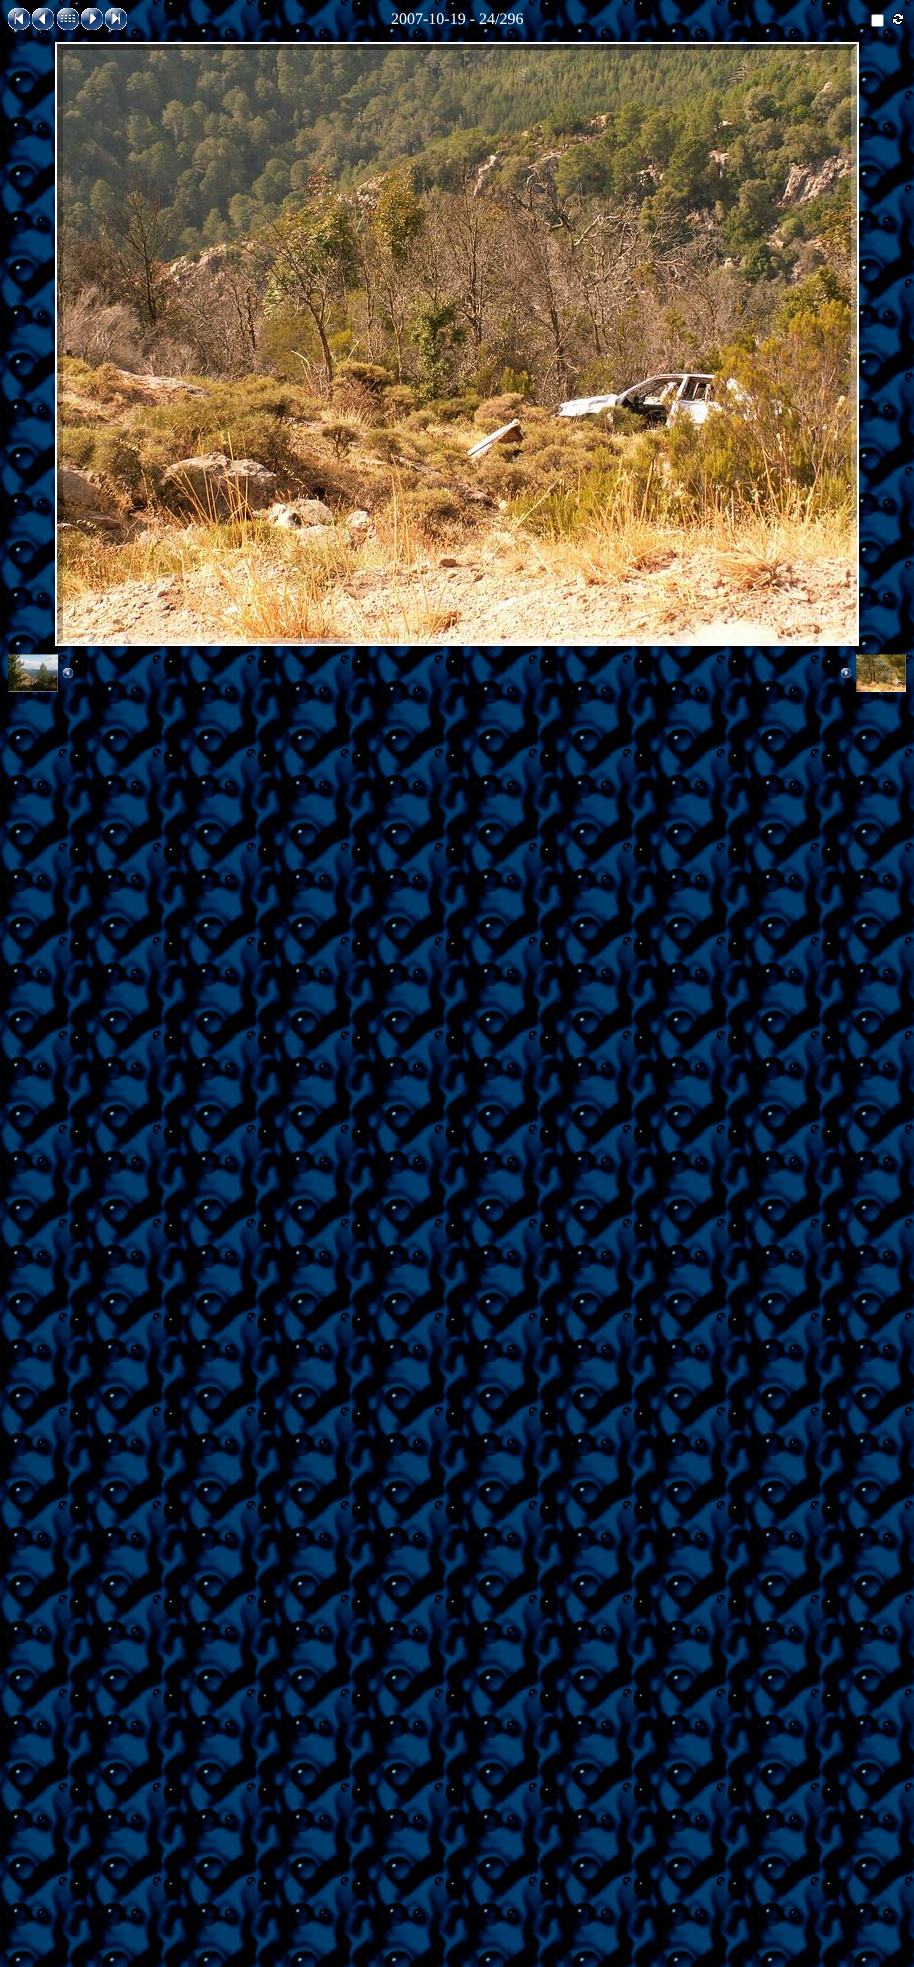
<svg xmlns="http://www.w3.org/2000/svg" width="914" height="1967" viewBox="0 0 914 1967">
  <rect width="100%" height="100%" fill="rgb(255,255,255)"/>
  <image x="0" y="0" width="914" height="1967" href="pic1.png"/>
  <image x="8" y="8" width="22" height="22" href="pic2.png"/>
  <image x="32" y="8" width="22" height="22" href="pic3.png"/>
  <image x="57" y="8" width="22" height="22" href="pic4.png"/>
  <image x="81" y="8" width="22" height="22" href="pic5.png"/>
  <image x="105" y="8" width="22" height="22" href="pic6.png"/>
  <text x="391" y="24" font-family="Liberation Serif" font-size="16" fill="rgb(255,255,255)">2007-10-19 - 24/296</text>
  <rect x="871.5" y="14.5" width="12" height="12" rx="1.5" fill="rgb(255,255,255)" stroke="rgb(118,118,118)"/>
  <image x="892" y="13" width="12" height="12" href="pic7.png"/>
  <image x="55" y="42" width="804" height="604" href="pic8.png"/>
  <image x="8" y="654" width="50" height="38" href="pic9.png"/>
  <image x="63" y="668" width="10" height="10" href="pic10.png"/>
  <image x="841" y="668" width="10" height="10" href="pic11.png"/>
  <image x="856" y="654" width="50" height="38" href="pic12.png"/>
</svg>
